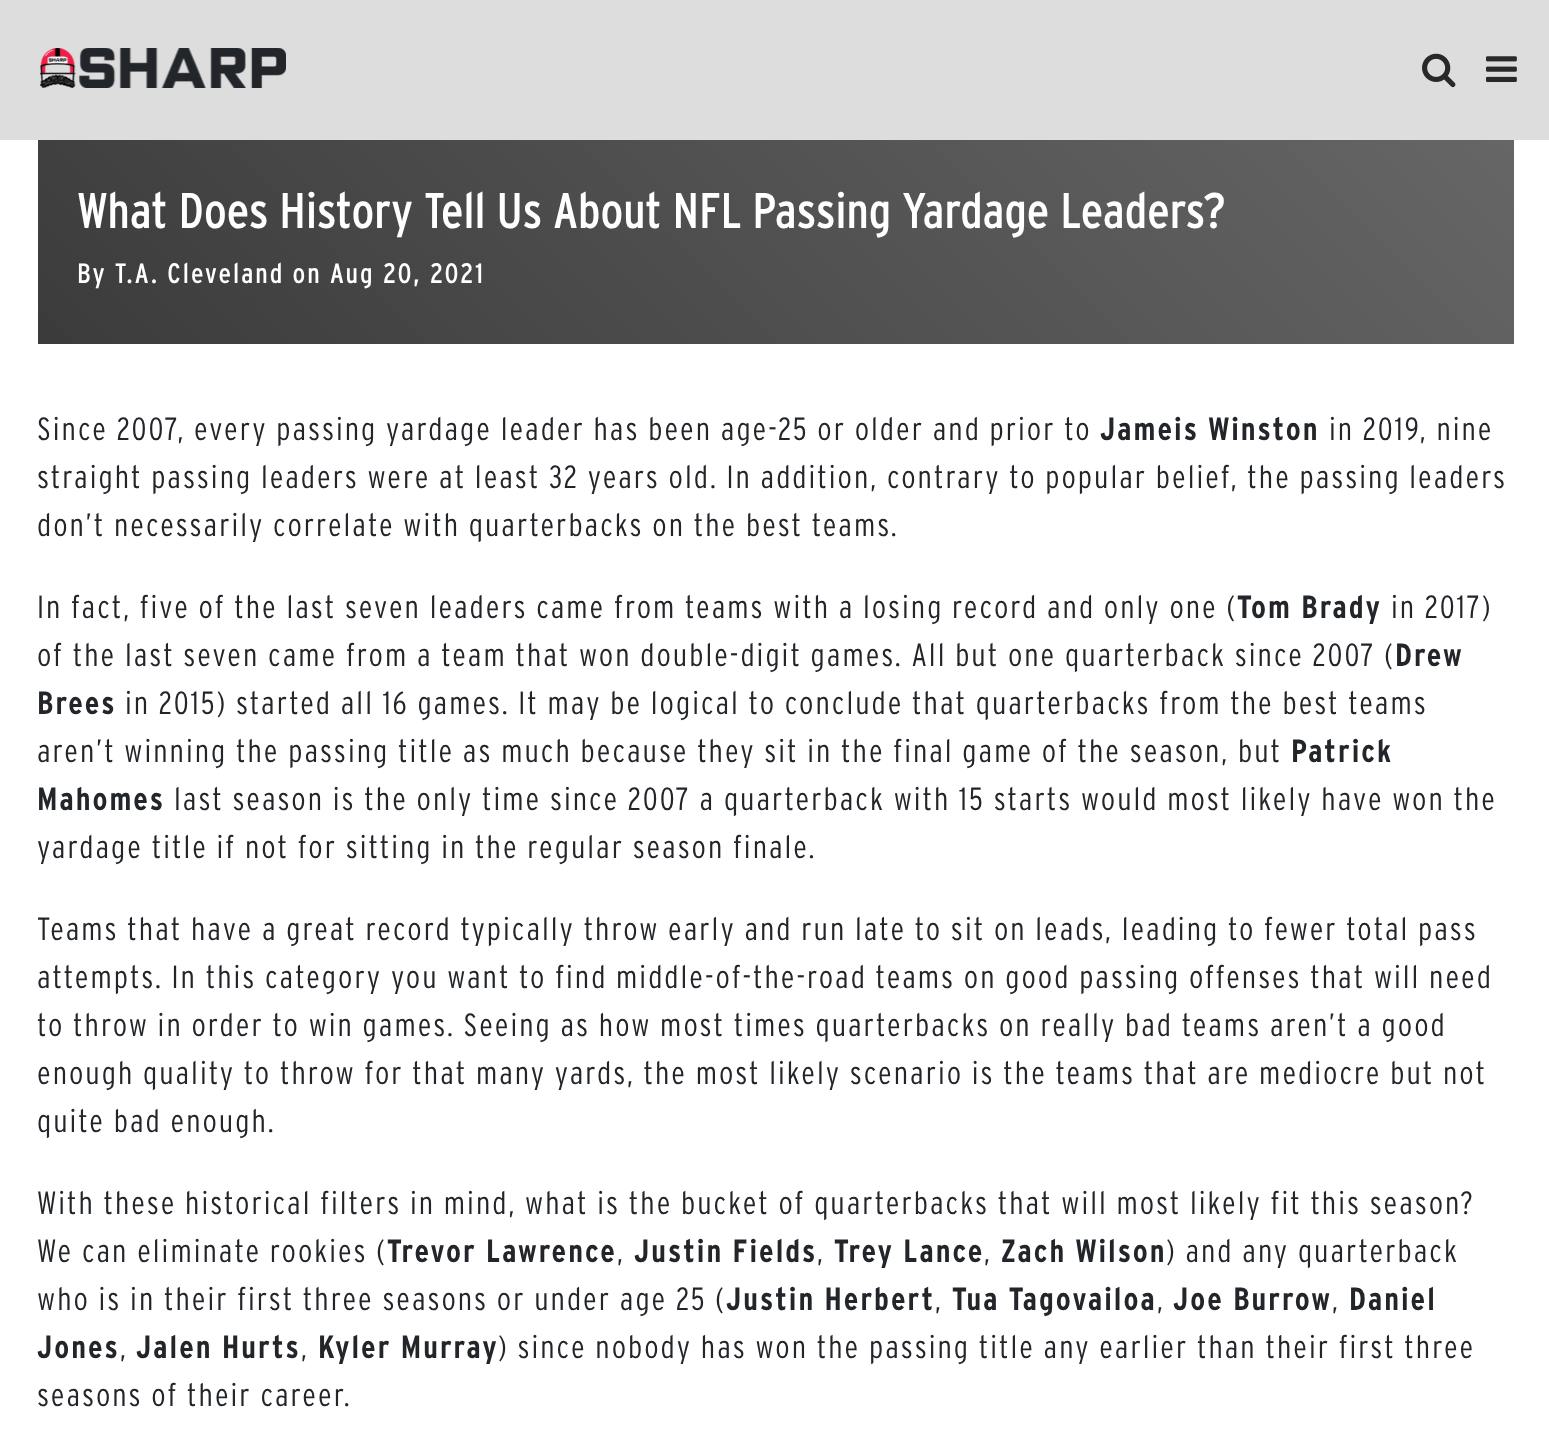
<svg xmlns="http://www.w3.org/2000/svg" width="1549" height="1446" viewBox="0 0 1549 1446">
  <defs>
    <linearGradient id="g1" gradientUnits="userSpaceOnUse" x1="356" y1="662" x2="1196" y2="-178"><stop offset="0" stop-color="rgb(59,59,59)"/><stop offset="1" stop-color="rgb(102,102,102)"/></linearGradient>
  </defs>
  <rect width="100%" height="100%" fill="rgb(255,255,255)"/>
  <rect x="0" y="0" width="1549" height="140" fill="rgb(221,221,221)"/>
  <image x="40" y="48" width="246" height="40" href="pic1.png"/>
  <image x="1422" y="53" width="34" height="35" href="pic2.png"/>
  <image x="1486" y="56" width="31" height="26" href="pic3.png"/>
  <rect x="38" y="140" width="1476" height="204" fill="url(#g1)"/>
  <text x="77" y="228" font-family="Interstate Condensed" font-size="50" fill="rgb(255,255,255)">What Does History Tell Us About NFL Passing Yardage Leaders?</text>
  <text x="77" y="283" font-family="Interstate Condensed" font-size="28" letter-spacing="2" fill="rgb(255,255,255)">By T.A. Cleveland on Aug 20, 2021</text>
  <text x="37" y="440" font-family="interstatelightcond" font-size="32" font-weight="300" letter-spacing="2" fill="rgb(34,37,41)">Since 2007, every passing yardage leader has been age-25 or older and prior to</text>
  <text x="1100" y="440" font-family="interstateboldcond" font-size="32" font-weight="bold" letter-spacing="2" fill="rgb(34,37,41)">Jameis Winston</text>
  <g font-family="interstatelightcond" font-size="32" font-weight="300" letter-spacing="2" fill="rgb(34,37,41)">
    <text x="1329" y="440">in 2019, nine</text>
    <text>
      <tspan x="37" y="488">straight passing leaders were at least 32 years old. In addition, contrary to popular belief, the passing leaders</tspan>
      <tspan x="37" y="536">don’t necessarily correlate with quarterbacks on the best teams.</tspan>
    </text>
    <text x="37" y="618">In fact, five of the last seven leaders came from teams with a losing record and only one (</text>
  </g>
  <text x="1237" y="618" font-family="interstateboldcond" font-size="32" font-weight="bold" letter-spacing="2" fill="rgb(34,37,41)">Tom Brady</text>
  <g font-family="interstatelightcond" font-size="32" font-weight="300" letter-spacing="2" fill="rgb(34,37,41)">
    <text x="1391" y="618">in 2017)</text>
    <text x="37" y="666">of the last seven came from a team that won double-digit games. All but one quarterback since 2007 (</text>
  </g>
  <g font-family="interstateboldcond" font-size="32" font-weight="bold" letter-spacing="2" fill="rgb(34,37,41)">
    <text x="1395" y="666">Drew</text>
    <text x="37" y="714">Brees</text>
  </g>
  <g font-family="interstatelightcond" font-size="32" font-weight="300" letter-spacing="2" fill="rgb(34,37,41)">
    <text x="125" y="714">in 2015) started all 16 games. It may be logical to conclude that quarterbacks from the best teams</text>
    <text x="37" y="762">aren’t winning the passing title as much because they sit in the final game of the season, but</text>
  </g>
  <g font-family="interstateboldcond" font-size="32" font-weight="bold" letter-spacing="2" fill="rgb(34,37,41)">
    <text x="1291" y="762">Patrick</text>
    <text x="37" y="810">Mahomes</text>
  </g>
  <g font-family="interstatelightcond" font-size="32" font-weight="300" letter-spacing="2" fill="rgb(34,37,41)">
    <text x="174" y="810">last season is the only time since 2007 a quarterback with 15 starts would most likely have won the</text>
    <text x="37" y="858">yardage title if not for sitting in the regular season finale.</text>
    <text>
      <tspan x="37" y="940">Teams that have a great record typically throw early and run late to sit on leads, leading to fewer total pass</tspan>
      <tspan x="37" y="988">attempts. In this category you want to find middle-of-the-road teams on good passing offenses that will need</tspan>
      <tspan x="37" y="1036">to throw in order to win games. Seeing as how most times quarterbacks on really bad teams aren’t a good</tspan>
      <tspan x="37" y="1084">enough quality to throw for that many yards, the most likely scenario is the teams that are mediocre but not</tspan>
      <tspan x="37" y="1132">quite bad enough.</tspan>
    </text>
    <text>
      <tspan x="37" y="1214">With these historical filters in mind, what is the bucket of quarterbacks that will most likely fit this season?</tspan>
      <tspan x="37" y="1262">We can eliminate rookies (</tspan>
    </text>
  </g>
  <text x="387" y="1262" font-family="interstateboldcond" font-size="32" font-weight="bold" letter-spacing="2" fill="rgb(34,37,41)">Trevor Lawrence</text>
  <text x="617" y="1262" font-family="interstatelightcond" font-size="32" font-weight="300" letter-spacing="2" fill="rgb(34,37,41)">,</text>
  <text x="634" y="1262" font-family="interstateboldcond" font-size="32" font-weight="bold" letter-spacing="2" fill="rgb(34,37,41)">Justin Fields</text>
  <text x="817" y="1262" font-family="interstatelightcond" font-size="32" font-weight="300" letter-spacing="2" fill="rgb(34,37,41)">,</text>
  <text x="834" y="1262" font-family="interstateboldcond" font-size="32" font-weight="bold" letter-spacing="2" fill="rgb(34,37,41)">Trey Lance</text>
  <text x="984" y="1262" font-family="interstatelightcond" font-size="32" font-weight="300" letter-spacing="2" fill="rgb(34,37,41)">,</text>
  <text x="1001" y="1262" font-family="interstateboldcond" font-size="32" font-weight="bold" letter-spacing="2" fill="rgb(34,37,41)">Zach Wilson</text>
  <g font-family="interstatelightcond" font-size="32" font-weight="300" letter-spacing="2" fill="rgb(34,37,41)">
    <text x="1166" y="1262">) and any quarterback</text>
    <text x="37" y="1310">who is in their first three seasons or under age 25 (</text>
  </g>
  <text x="726" y="1310" font-family="interstateboldcond" font-size="32" font-weight="bold" letter-spacing="2" fill="rgb(34,37,41)">Justin Herbert</text>
  <text x="935" y="1310" font-family="interstatelightcond" font-size="32" font-weight="300" letter-spacing="2" fill="rgb(34,37,41)">,</text>
  <text x="952" y="1310" font-family="interstateboldcond" font-size="32" font-weight="bold" letter-spacing="2" fill="rgb(34,37,41)">Tua Tagovailoa</text>
  <text x="1157" y="1310" font-family="interstatelightcond" font-size="32" font-weight="300" letter-spacing="2" fill="rgb(34,37,41)">,</text>
  <text x="1173" y="1310" font-family="interstateboldcond" font-size="32" font-weight="bold" letter-spacing="2" fill="rgb(34,37,41)">Joe Burrow</text>
  <text x="1332" y="1310" font-family="interstatelightcond" font-size="32" font-weight="300" letter-spacing="2" fill="rgb(34,37,41)">,</text>
  <g font-family="interstateboldcond" font-size="32" font-weight="bold" letter-spacing="2" fill="rgb(34,37,41)">
    <text x="1349" y="1310">Daniel</text>
    <text x="37" y="1358">Jones</text>
  </g>
  <text x="120" y="1358" font-family="interstatelightcond" font-size="32" font-weight="300" letter-spacing="2" fill="rgb(34,37,41)">,</text>
  <text x="136" y="1358" font-family="interstateboldcond" font-size="32" font-weight="bold" letter-spacing="2" fill="rgb(34,37,41)">Jalen Hurts</text>
  <text x="301" y="1358" font-family="interstatelightcond" font-size="32" font-weight="300" letter-spacing="2" fill="rgb(34,37,41)">,</text>
  <text x="318" y="1358" font-family="interstateboldcond" font-size="32" font-weight="bold" letter-spacing="2" fill="rgb(34,37,41)">Kyler Murray</text>
  <g font-family="interstatelightcond" font-size="32" font-weight="300" letter-spacing="2" fill="rgb(34,37,41)">
    <text x="498" y="1358">) since nobody has won the passing title any earlier than their first three</text>
    <text x="37" y="1406">seasons of their career.</text>
  </g>
</svg>
